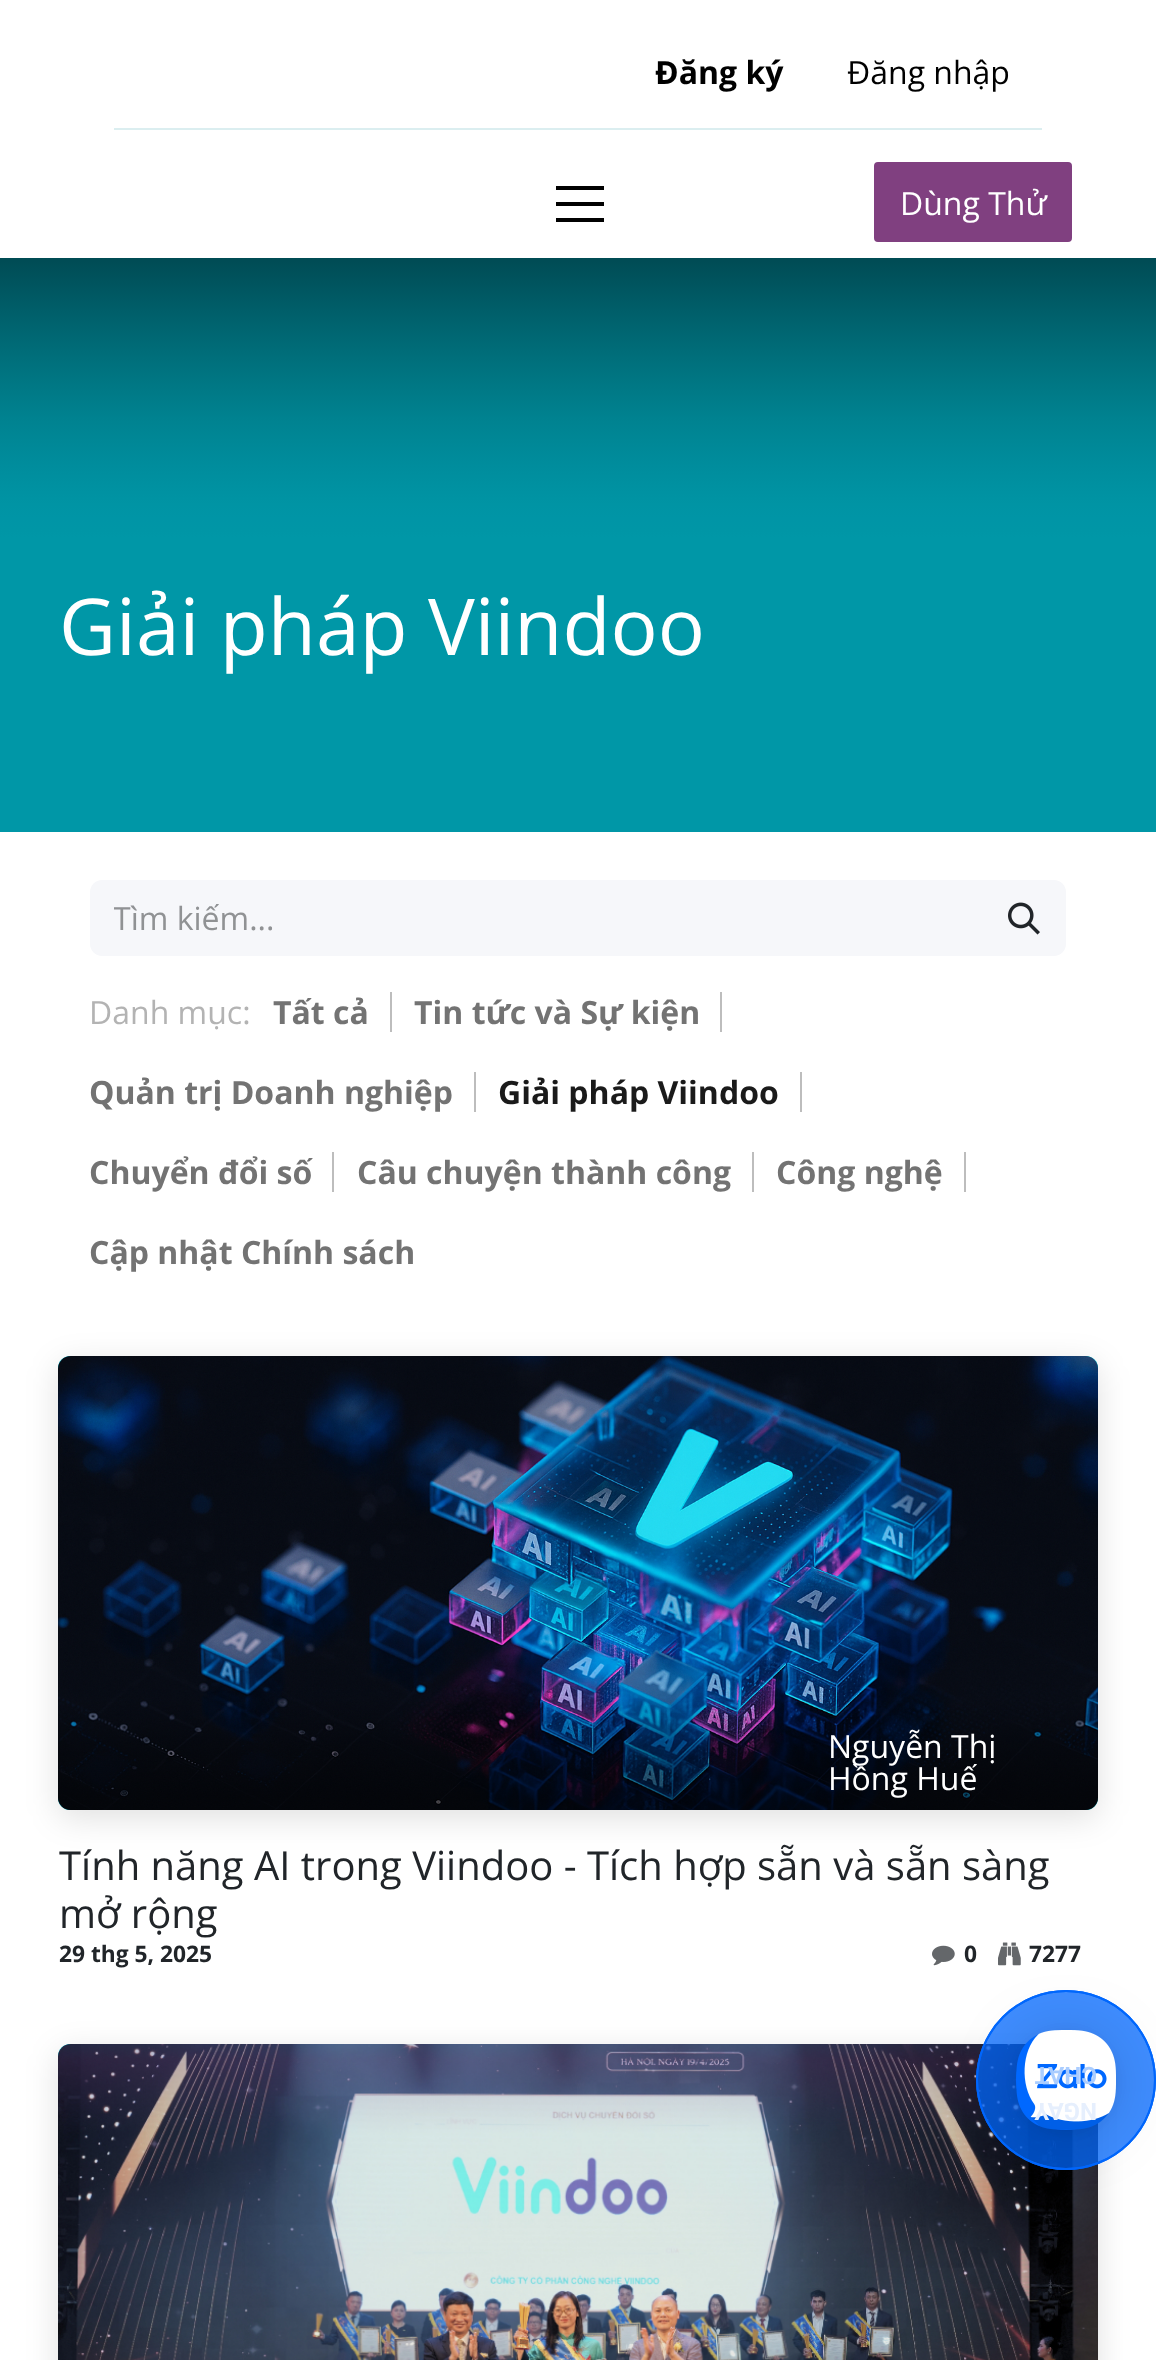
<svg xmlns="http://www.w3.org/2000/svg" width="1156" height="2360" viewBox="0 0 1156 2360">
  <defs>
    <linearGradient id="g1" gradientUnits="userSpaceOnUse" x1="578" y1="258" x2="578" y2="544"><stop offset="0" stop-color="rgb(0,75,84)"/><stop offset="0.19" stop-color="rgb(0,95,106)"/><stop offset="0.34" stop-color="rgb(0,110,122)"/><stop offset="0.47" stop-color="rgb(0,122,135)"/><stop offset="0.56" stop-color="rgb(0,130,144)"/><stop offset="0.65" stop-color="rgb(0,136,151)"/><stop offset="0.73" stop-color="rgb(0,141,157)"/><stop offset="0.8" stop-color="rgb(0,145,161)"/><stop offset="0.86" stop-color="rgb(0,148,164)"/><stop offset="0.91" stop-color="rgb(0,149,166)"/><stop offset="0.95" stop-color="rgb(0,150,166)"/><stop offset="0.98" stop-color="rgb(0,151,167)"/><stop offset="1" stop-color="rgb(0,151,167)"/></linearGradient>
    <clipPath id="clip1"><rect x="114" y="896" width="794" height="44"/></clipPath>
    <linearGradient id="g2" gradientUnits="userSpaceOnUse" x1="578" y1="1698" x2="578" y2="1810"><stop offset="0" stop-color="rgb(0,0,0)" stop-opacity="0"/><stop offset="0.19" stop-color="rgb(0,0,0)" stop-opacity="0.13"/><stop offset="0.34" stop-color="rgb(0,0,0)" stop-opacity="0.23"/><stop offset="0.47" stop-color="rgb(0,0,0)" stop-opacity="0.31"/><stop offset="0.56" stop-color="rgb(0,0,0)" stop-opacity="0.36"/><stop offset="0.65" stop-color="rgb(0,0,0)" stop-opacity="0.4"/><stop offset="0.73" stop-color="rgb(0,0,0)" stop-opacity="0.43"/><stop offset="0.8" stop-color="rgb(0,0,0)" stop-opacity="0.46"/><stop offset="0.86" stop-color="rgb(0,0,0)" stop-opacity="0.48"/><stop offset="0.91" stop-color="rgb(0,0,0)" stop-opacity="0.49"/><stop offset="0.95" stop-color="rgb(0,0,0)" stop-opacity="0.49"/><stop offset="0.98" stop-color="rgb(0,0,0)" stop-opacity="0.5"/><stop offset="1" stop-color="rgb(0,0,0)" stop-opacity="0.5"/></linearGradient>
  </defs>
  <rect width="100%" height="100%" fill="rgb(255,255,255)"/>
  <text x="655" y="84" font-family="Open Sans" font-size="32" font-weight="bold" fill="rgb(0,0,0)">Đăng ký</text>
  <text x="847" y="84" font-family="Open Sans" font-size="32" fill="rgb(0,0,0)">Đăng nhập</text>
  <rect x="114" y="128" width="928" height="2" fill="rgb(219,238,240)"/>
  <rect x="556" y="218" width="48" height="4" fill="rgb(1,1,1)"/>
  <rect x="556" y="186" width="48" height="4" fill="rgb(1,1,1)"/>
  <rect x="556" y="202" width="48" height="4" fill="rgb(1,1,1)"/>
  <rect x="875" y="163" width="196" height="78" rx="3" fill="rgb(128,64,128)" stroke="rgb(128,64,128)" stroke-width="2"/>
  <text x="900" y="215" font-family="Open Sans" font-size="32" fill="rgb(255,255,255)">Dùng Thử</text>
  <rect x="0" y="544" width="1156" height="288" fill="rgb(0,151,167)"/>
  <rect x="0" y="258" width="1156" height="286" fill="url(#g1)"/>
  <text x="59" y="655" font-family="Open Sans" font-size="78.5" fill="rgb(255,255,255)">Giải pháp Viindoo</text>
  <path d="M102 880H984V956H102C95.5 956 90 950.5 90 944V892C90 885.5 95.5 880 102 880Z" fill="rgb(246,247,250)"/>
  <g clip-path="url(#clip1)">
    <text x="113" y="930" font-family="Open Sans" font-size="32" fill="rgb(144,146,148)">Tìm kiếm...</text>
  </g>
  <path d="M982 880H1054C1060.5 880 1066 885.5 1066 892V944C1066 950.5 1060.5 956 1054 956H982Z" fill="rgb(246,247,250)"/>
  <image x="1008" y="902" width="32" height="33" href="pic1.png"/>
  <text x="89" y="1024" font-family="Open Sans" font-size="32" fill="rgb(179,179,179)">Danh mục:</text>
  <text x="273" y="1024" font-family="Open Sans" font-size="32" font-weight="bold" fill="rgb(115,115,115)">Tất cả</text>
  <rect x="390" y="992" width="2" height="40" fill="rgb(189,189,189)"/>
  <text x="414" y="1024" font-family="Open Sans" font-size="32" font-weight="bold" fill="rgb(115,115,115)">Tin tức và Sự kiện</text>
  <rect x="720" y="992" width="2" height="40" fill="rgb(189,189,189)"/>
  <text x="89" y="1104" font-family="Open Sans" font-size="32" font-weight="bold" fill="rgb(115,115,115)">Quản trị Doanh nghiệp</text>
  <rect x="474" y="1072" width="2" height="40" fill="rgb(189,189,189)"/>
  <text x="498" y="1104" font-family="Open Sans" font-size="32" font-weight="bold" fill="rgb(26,26,26)">Giải pháp Viindoo</text>
  <rect x="800" y="1072" width="2" height="40" fill="rgb(189,189,189)"/>
  <text x="89" y="1184" font-family="Open Sans" font-size="32" font-weight="bold" fill="rgb(115,115,115)">Chuyển đổi số</text>
  <rect x="332" y="1152" width="2" height="40" fill="rgb(189,189,189)"/>
  <text x="357" y="1184" font-family="Open Sans" font-size="32" font-weight="bold" fill="rgb(115,115,115)">Câu chuyện thành công</text>
  <rect x="752" y="1152" width="2" height="40" fill="rgb(189,189,189)"/>
  <text x="776" y="1184" font-family="Open Sans" font-size="32" font-weight="bold" fill="rgb(115,115,115)">Công nghệ</text>
  <rect x="964" y="1152" width="2" height="40" fill="rgb(189,189,189)"/>
  <text x="89" y="1264" font-family="Open Sans" font-size="32" font-weight="bold" fill="rgb(115,115,115)">Cập nhật Chính sách</text>
  <rect x="58" y="1364" width="1040" height="454" rx="12" fill="rgba(0,0,0,0.12)" filter="blur(16px)"/>
  <rect x="58" y="1356" width="1040" height="454" rx="12" fill="rgb(0,184,204)"/>
  <image x="58" y="1356" width="1040" height="454" href="pic2.png"/>
  <path d="M58 1698H1098V1798C1098 1804.5 1092.5 1810 1086 1810H70C63.5 1810 58 1804.5 58 1798Z" fill="url(#g2)"/>
  <g font-family="Open Sans" font-size="32" fill="rgb(255,255,255)">
    <text>
      <tspan x="828" y="1758">Nguyễn Thị</tspan>
      <tspan x="828" y="1790">Hồng Huế</tspan>
    </text>
  </g>
  <g font-family="Open Sans" font-size="40" fill="rgb(33,37,41)">
    <text>
      <tspan x="59" y="1880">Tính năng AI trong Viindoo - Tích hợp sẵn và sẵn sàng</tspan>
      <tspan x="59" y="1928">mở rộng</tspan>
    </text>
  </g>
  <text x="59" y="1962" font-family="Open Sans" font-size="22.75" font-weight="bold" fill="rgb(33,37,41)">29 thg 5, 2025</text>
  <image x="932" y="1945" width="23" height="21" href="pic3.png"/>
  <text x="964" y="1962" font-family="Open Sans" font-size="22.75" font-weight="bold" fill="rgb(33,37,41)">0</text>
  <image x="998" y="1942" width="23" height="24" href="pic4.png"/>
  <text x="1029" y="1962" font-family="Open Sans" font-size="22.75" font-weight="bold" fill="rgb(33,37,41)">7277</text>
  <rect x="58" y="2052" width="1040" height="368" rx="12" fill="rgba(0,0,0,0.12)" filter="blur(16px)"/>
  <path d="M70 2044H1086C1092.5 2044 1098 2049.5 1098 2056V2360H58V2056C58 2049.5 63.5 2044 70 2044Z" fill="rgb(0,184,204)"/>
  <image x="58" y="2044" width="1040" height="316" href="pic5.png"/>
  <circle cx="1066" cy="2080" r="89" fill="rgba(0,104,255,0.5)" stroke="rgb(0,104,255)" stroke-width="2"/>
  <circle cx="1066" cy="2080" r="89" fill="rgba(0,104,255,0.5)" stroke="rgb(0,104,255)" stroke-width="2"/>
  <rect x="1016" y="2034" width="100" height="100" rx="50" fill="rgba(0,0,0,0.16)" filter="blur(32px)"/>
  <rect x="1016" y="2032" width="100" height="100" rx="50" fill="rgba(0,0,0,0.06)" filter="blur(6px)"/>
  <circle cx="1066" cy="2080" r="50" fill="rgb(0,104,255)"/>
  <image x="1016" y="2030" width="100" height="100" href="pic6.png"/>
  <text x="1097" y="2067" transform="rotate(180 1097 2067)" font-family="Roboto" font-size="24" font-weight="bold" fill="rgb(170,205,255)">CHAT</text>
  <text x="1097" y="2103" transform="rotate(180 1097 2103)" font-family="Roboto" font-size="24" font-weight="bold" fill="rgb(230,239,253)">NGAY</text>
</svg>
